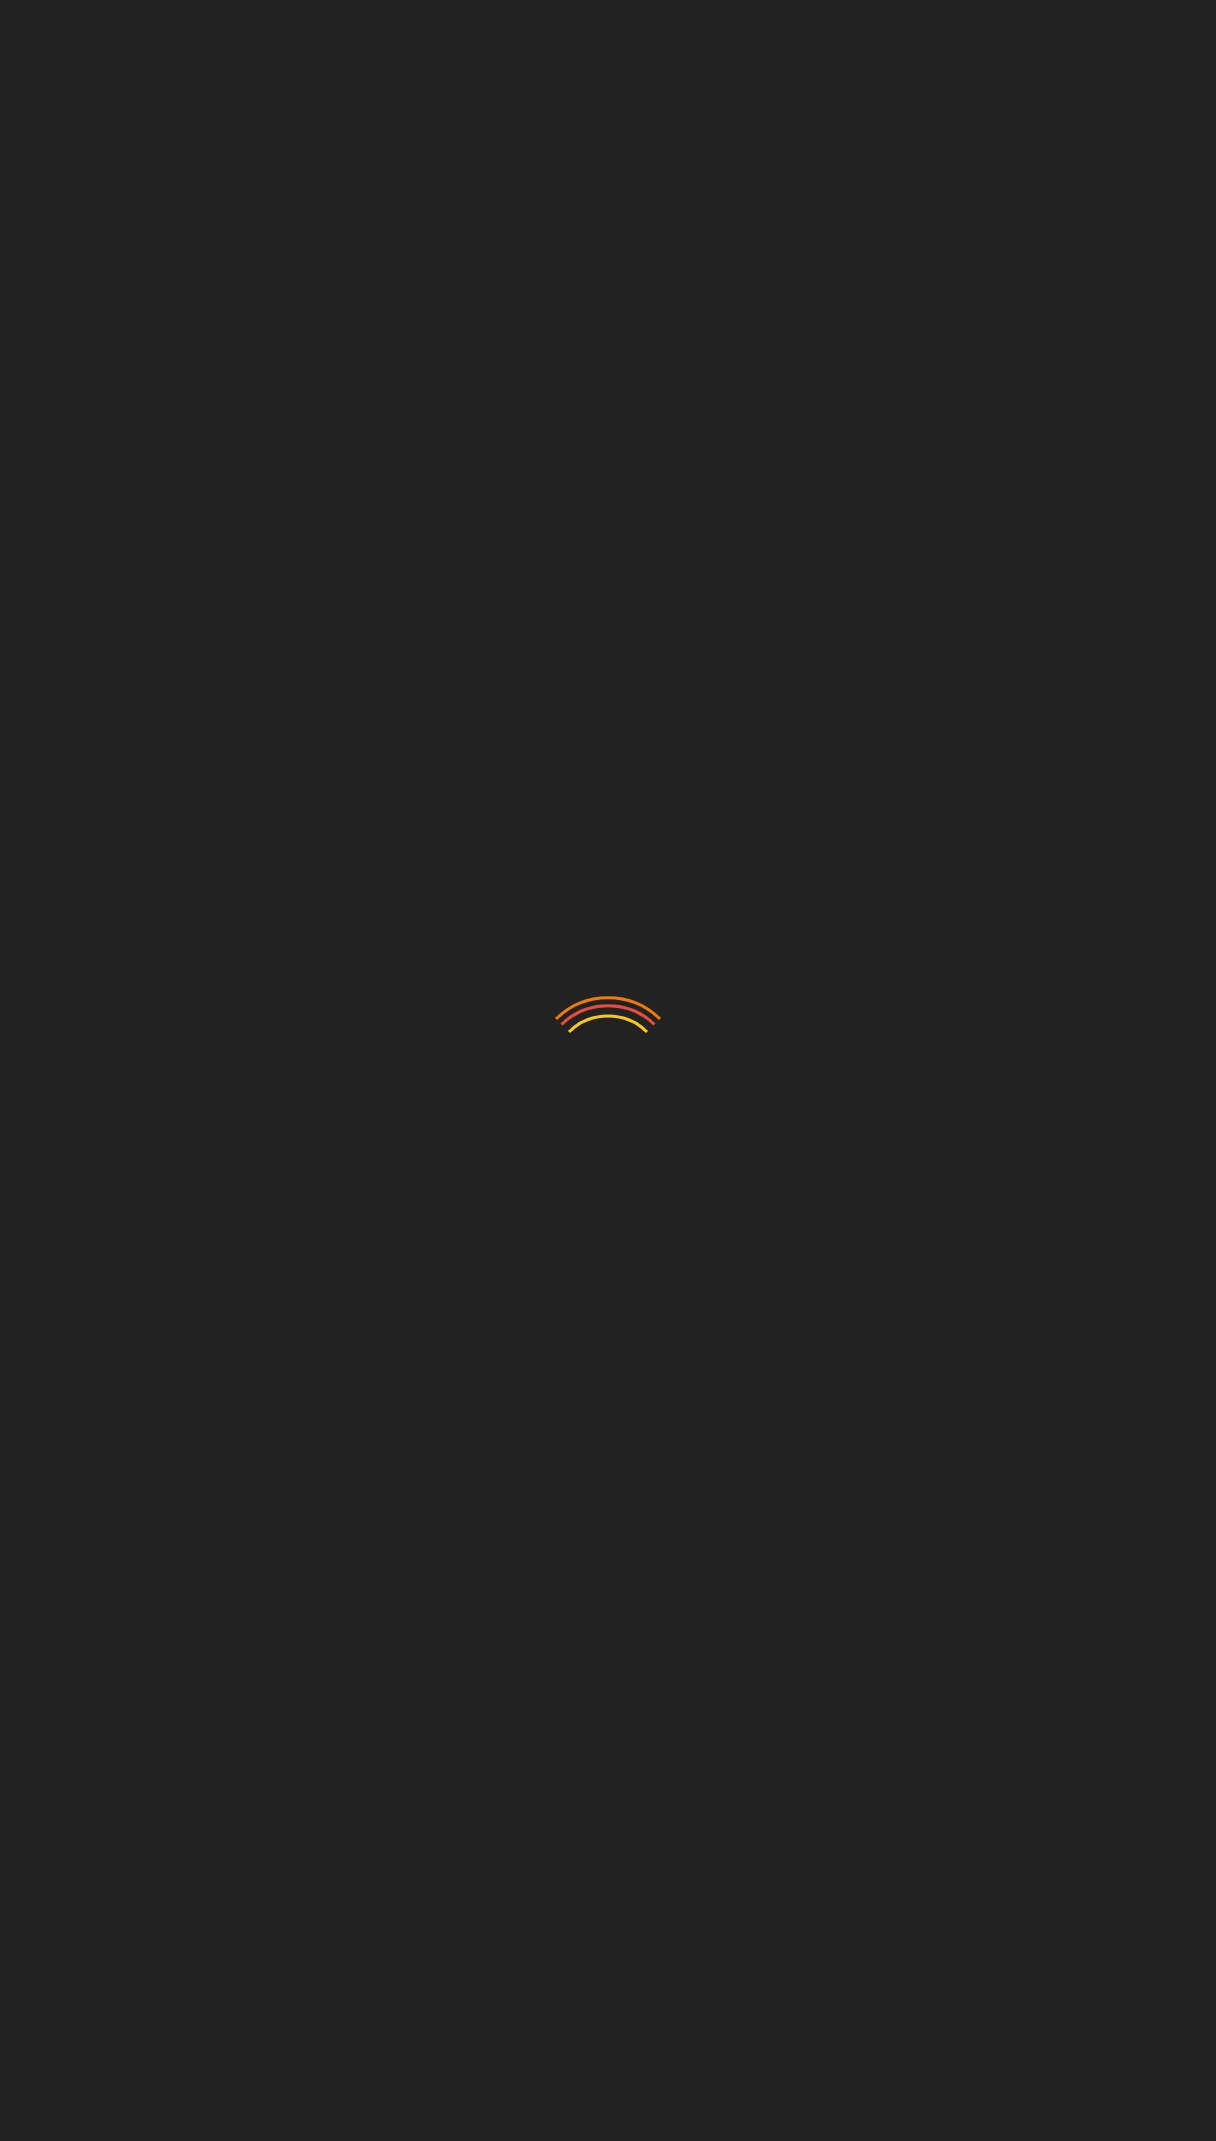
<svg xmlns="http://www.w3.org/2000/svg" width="1216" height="2141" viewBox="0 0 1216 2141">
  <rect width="100%" height="100%" fill="rgb(34,34,34)"/>
  <path d="M556 1019C584.5 990.5 631.5 990.5 660 1019" fill="none" stroke="rgb(239,123,7)" stroke-width="3"/>
  <path d="M561.5 1024.5C587 999.5 629 999.5 654.5 1024.5" fill="none" stroke="rgb(231,76,60)" stroke-width="3"/>
  <path d="M569 1032C590 1010.5 626 1010.5 647 1032" fill="none" stroke="rgb(249,201,34)" stroke-width="3"/>
</svg>
